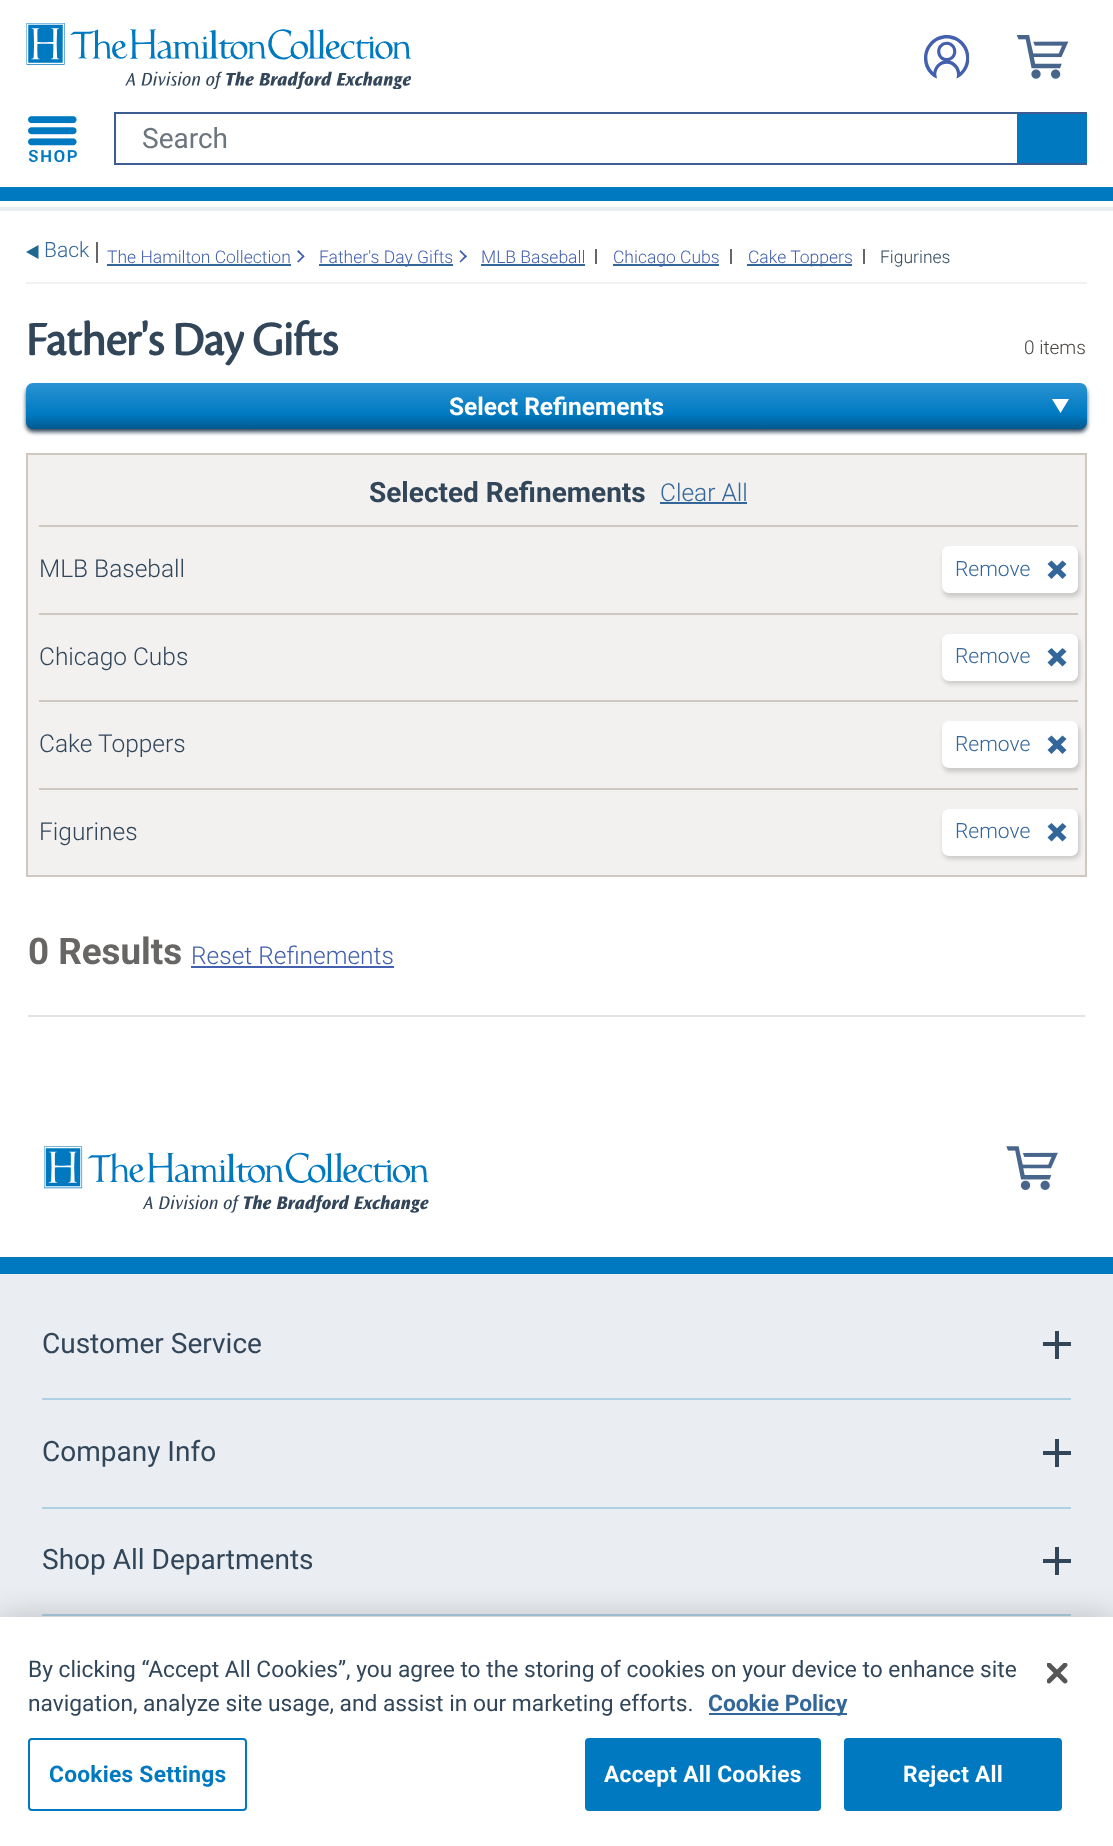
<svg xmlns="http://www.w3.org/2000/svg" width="1113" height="1846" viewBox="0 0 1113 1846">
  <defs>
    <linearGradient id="g1" gradientUnits="userSpaceOnUse" x1="557" y1="383" x2="557" y2="429"><stop offset="0" stop-color="rgb(41,147,211)"/><stop offset="0.69" stop-color="rgb(0,121,193)"/><stop offset="1" stop-color="rgb(0,89,142)"/></linearGradient>
  </defs>
  <rect width="100%" height="100%" fill="rgb(255,255,255)"/>
  <image x="26" y="23" width="385" height="66" href="pic1.png"/>
  <image x="924" y="35" width="46" height="44" href="pic2.png"/>
  <image x="1017" y="35" width="52" height="44" href="pic3.png"/>
  <image x="28" y="116" width="49" height="47" href="pic4.png"/>
  <rect x="115" y="113" width="971" height="51" fill="none" stroke="rgb(61,92,145)" stroke-width="2"/>
  <text x="142" y="148" font-family="Roboto" font-size="28" fill="rgb(108,117,125)">Search</text>
  <rect x="1017" y="114" width="70" height="49" fill="rgb(0,121,193)"/>
  <rect x="0" y="187" width="1113" height="14" fill="rgb(0,121,193)"/>
  <rect x="0" y="207" width="1113" height="4" fill="rgb(234,237,241)"/>
  <rect x="26" y="282" width="1061" height="2" fill="rgb(242,241,240)"/>
  <path d="M38.5 245V259L26 252Z" fill="rgb(30,103,145)"/>
  <text x="44" y="257" font-family="Roboto" font-size="21" font-weight="300" fill="rgb(51,102,153)">Back</text>
  <rect x="96" y="242" width="2" height="21" fill="rgb(104,102,100)"/>
  <text x="107" y="263" font-family="Roboto" font-size="17.5" font-weight="300" fill="rgb(67,96,174)">The Hamilton Collection</text>
  <rect x="107" y="264" width="184" height="2" fill="rgb(51,102,153)"/>
  <path d="M298.5 250L304.5 256.5L303.5 257.5L297 251.5Z" fill="rgb(67,96,174)"/>
  <path d="M303.5 255L304.5 256.5L298.5 262.5L297 261.5Z" fill="rgb(67,96,174)"/>
  <rect x="319" y="264" width="134" height="2" fill="rgb(51,102,153)"/>
  <text x="319" y="263" font-family="Roboto" font-size="17.5" font-weight="300" fill="rgb(67,96,174)">Father's Day Gifts</text>
  <path d="M460.5 250L467 256.5L465.5 257.5L459.5 251.5Z" fill="rgb(67,96,174)"/>
  <path d="M465.5 255L467 256.5L460.5 262.5L459.5 261.5Z" fill="rgb(67,96,174)"/>
  <text x="481" y="263" font-family="Roboto" font-size="17.5" font-weight="300" fill="rgb(67,96,174)">MLB Baseball</text>
  <rect x="481" y="264" width="104" height="2" fill="rgb(51,102,153)"/>
  <rect x="595" y="249" width="2" height="15" fill="rgb(104,102,100)"/>
  <rect x="613" y="264" width="106" height="2" fill="rgb(51,102,153)"/>
  <text x="613" y="263" font-family="Roboto" font-size="17.5" font-weight="300" fill="rgb(67,96,174)">Chicago Cubs</text>
  <rect x="730" y="249" width="2" height="15" fill="rgb(104,102,100)"/>
  <rect x="747" y="264" width="105" height="2" fill="rgb(51,102,153)"/>
  <text x="748" y="263" font-family="Roboto" font-size="17.5" font-weight="300" fill="rgb(67,96,174)">Cake Toppers</text>
  <rect x="863" y="249" width="2" height="15" fill="rgb(104,102,100)"/>
  <text x="880" y="263" font-family="Roboto" font-size="17.5" font-weight="300" fill="rgb(50,70,90)">Figurines</text>
  <text x="26" y="355" font-family="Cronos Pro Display" font-size="49" font-weight="bold" fill="rgb(50,70,90)">Father's Day Gifts</text>
  <text x="1024" y="354" font-family="Roboto" font-size="19" font-weight="300" fill="rgb(71,68,65)">0 items</text>
  <rect x="26" y="387" width="1061" height="45" rx="7" fill="rgb(50,70,90)" filter="blur(2px)"/>
  <rect x="26" y="383" width="1061" height="46" rx="7" fill="url(#g1)"/>
  <text x="449" y="415" font-family="Roboto" font-size="24.5" font-weight="bold" fill="rgb(255,255,255)">Select Refinements</text>
  <path d="M1052 399H1069L1060.5 413Z" fill="rgb(255,255,255)"/>
  <rect x="27" y="454" width="1059" height="422" fill="rgb(242,241,240)" stroke="rgb(207,200,192)" stroke-width="2"/>
  <text x="369" y="502" font-family="Roboto" font-size="28" font-weight="bold" fill="rgb(50,70,90)">Selected Refinements</text>
  <text x="660" y="501" font-family="Roboto" font-size="24.5" font-weight="300" fill="rgb(51,102,153)">Clear All</text>
  <rect x="660" y="502" width="87" height="2" fill="rgb(51,102,153)"/>
  <rect x="39" y="525" width="1039" height="2" fill="rgb(207,200,192)"/>
  <text x="39" y="577" font-family="Roboto" font-size="24.5" font-weight="300" fill="rgb(50,70,90)">MLB Baseball</text>
  <rect x="943" y="550" width="137" height="47" rx="7" fill="rgba(0,0,0,0.16)" filter="blur(2px)"/>
  <rect x="942" y="546" width="136" height="47" rx="7" fill="rgb(255,255,255)"/>
  <path d="M1051.5 560.5L1066.5 575L1062.5 579L1047.5 564Z" fill="rgb(51,102,153)"/>
  <text x="955" y="576" font-family="Roboto" font-size="21" font-weight="300" fill="rgb(51,102,153)">Remove</text>
  <path d="M1066.5 564L1051.5 579L1047.5 575L1062.5 560.5Z" fill="rgb(51,102,153)"/>
  <rect x="39" y="613" width="1039" height="2" fill="rgb(207,200,192)"/>
  <text x="39" y="665" font-family="Roboto" font-size="24.5" font-weight="300" fill="rgb(50,70,90)">Chicago Cubs</text>
  <rect x="943" y="637" width="137" height="47" rx="7" fill="rgba(0,0,0,0.16)" filter="blur(2px)"/>
  <rect x="942" y="634" width="136" height="47" rx="7" fill="rgb(255,255,255)"/>
  <text x="955" y="663" font-family="Roboto" font-size="21" font-weight="300" fill="rgb(51,102,153)">Remove</text>
  <path d="M1051.5 648L1066.5 662.5L1062.5 666.5L1047.5 651.5Z" fill="rgb(51,102,153)"/>
  <path d="M1066.5 651.5L1051.5 666.5L1047.5 662.5L1062.5 648Z" fill="rgb(51,102,153)"/>
  <rect x="39" y="700" width="1039" height="2" fill="rgb(207,200,192)"/>
  <text x="39" y="752" font-family="Roboto" font-size="24.5" font-weight="300" fill="rgb(50,70,90)">Cake Toppers</text>
  <rect x="943" y="725" width="137" height="47" rx="7" fill="rgba(0,0,0,0.16)" filter="blur(2px)"/>
  <rect x="942" y="721" width="136" height="47" rx="7" fill="rgb(255,255,255)"/>
  <path d="M1051.5 735.5L1066.5 750L1062.5 754L1047.5 739Z" fill="rgb(51,102,153)"/>
  <text x="955" y="751" font-family="Roboto" font-size="21" font-weight="300" fill="rgb(51,102,153)">Remove</text>
  <path d="M1066.5 739L1051.5 754L1047.5 750L1062.5 735.5Z" fill="rgb(51,102,153)"/>
  <rect x="39" y="788" width="1039" height="2" fill="rgb(207,200,192)"/>
  <text x="39" y="840" font-family="Roboto" font-size="24.5" font-weight="300" fill="rgb(50,70,90)">Figurines</text>
  <rect x="943" y="812" width="137" height="47" rx="7" fill="rgba(0,0,0,0.16)" filter="blur(2px)"/>
  <rect x="942" y="809" width="136" height="47" rx="7" fill="rgb(255,255,255)"/>
  <text x="955" y="838" font-family="Roboto" font-size="21" font-weight="300" fill="rgb(51,102,153)">Remove</text>
  <path d="M1051.5 823L1066.5 837.5L1062.5 841.5L1047.5 826.5Z" fill="rgb(51,102,153)"/>
  <path d="M1066.5 826.5L1051.5 841.5L1047.5 837.5L1062.5 823Z" fill="rgb(51,102,153)"/>
  <rect x="28" y="1015" width="1057" height="2" fill="rgb(229,227,225)"/>
  <text x="28" y="964" font-family="Roboto" font-size="36.75" font-weight="bold" fill="rgb(104,102,100)">0 Results</text>
  <text x="191" y="964" font-family="Roboto" font-size="24.5" font-weight="300" fill="rgb(67,96,174)">Reset Refinements</text>
  <rect x="191" y="966" width="203" height="2" fill="rgb(67,96,174)"/>
  <image x="44" y="1146" width="385" height="67" href="pic5.png"/>
  <image x="1006" y="1146" width="52" height="44" href="pic6.png"/>
  <rect x="0" y="1274" width="1113" height="343" fill="rgb(234,237,241)"/>
  <rect x="0" y="1257" width="1113" height="17" fill="rgb(0,121,193)"/>
  <rect x="42" y="1398" width="1029" height="2" fill="rgb(175,207,226)"/>
  <text x="42" y="1353" font-family="Roboto" font-size="28" fill="rgb(50,70,90)">Customer Service</text>
  <rect x="1043" y="1342" width="28" height="4" fill="rgb(50,70,90)"/>
  <rect x="1055" y="1331" width="4" height="28" fill="rgb(50,70,90)"/>
  <rect x="42" y="1507" width="1029" height="2" fill="rgb(175,207,226)"/>
  <text x="42" y="1461" font-family="Roboto" font-size="28" fill="rgb(50,70,90)">Company Info</text>
  <rect x="1043" y="1451" width="28" height="4" fill="rgb(50,70,90)"/>
  <rect x="1055" y="1439" width="4" height="28" fill="rgb(50,70,90)"/>
  <rect x="42" y="1614" width="1029" height="2" fill="rgb(175,207,226)"/>
  <text x="42" y="1569" font-family="Roboto" font-size="28" fill="rgb(50,70,90)">Shop All Departments</text>
  <rect x="1043" y="1559" width="28" height="4" fill="rgb(50,70,90)"/>
  <rect x="1055" y="1547" width="4" height="28" fill="rgb(50,70,90)"/>
  <rect x="0" y="1617" width="1113" height="229" fill="rgba(0,0,0,0.2)" filter="blur(16px)"/>
  <rect x="0" y="1617" width="1113" height="229" fill="rgb(255,255,255)"/>
  <g font-family="Roboto" font-size="22.75" fill="rgb(50,70,90)">
    <text>
      <tspan x="28" y="1677">By clicking “Accept All Cookies”, you agree to the storing of cookies on your device to enhance site</tspan>
      <tspan x="28" y="1711">navigation, analyze site usage, and assist in our marketing efforts.</tspan>
    </text>
  </g>
  <rect x="709" y="1713" width="138" height="2" fill="rgb(51,102,153)"/>
  <text x="708" y="1711" font-family="Roboto" font-size="22.75" font-weight="bold" fill="rgb(51,102,153)">Cookie Policy</text>
  <rect x="29" y="1739" width="217" height="71" rx="3" fill="none" stroke="rgb(0,121,193)" stroke-width="2"/>
  <text x="49" y="1782" font-family="Roboto" font-size="22.75" font-weight="bold" letter-spacing="0.25" fill="rgb(0,121,193)">Cookies Settings</text>
  <rect x="586" y="1739" width="234" height="71" rx="3" fill="rgb(0,121,193)" stroke="rgb(0,121,193)" stroke-width="2"/>
  <text x="604" y="1782" font-family="Roboto" font-size="22.75" font-weight="bold" letter-spacing="0.25" fill="rgb(255,255,255)">Accept All Cookies</text>
  <rect x="845" y="1739" width="216" height="71" rx="3" fill="rgb(0,121,193)" stroke="rgb(0,121,193)" stroke-width="2"/>
  <text x="903" y="1782" font-family="Roboto" font-size="22.75" font-weight="bold" letter-spacing="0.25" fill="rgb(255,255,255)">Reject All</text>
  <image x="1047" y="1663" width="21" height="21" href="pic7.png"/>
</svg>
